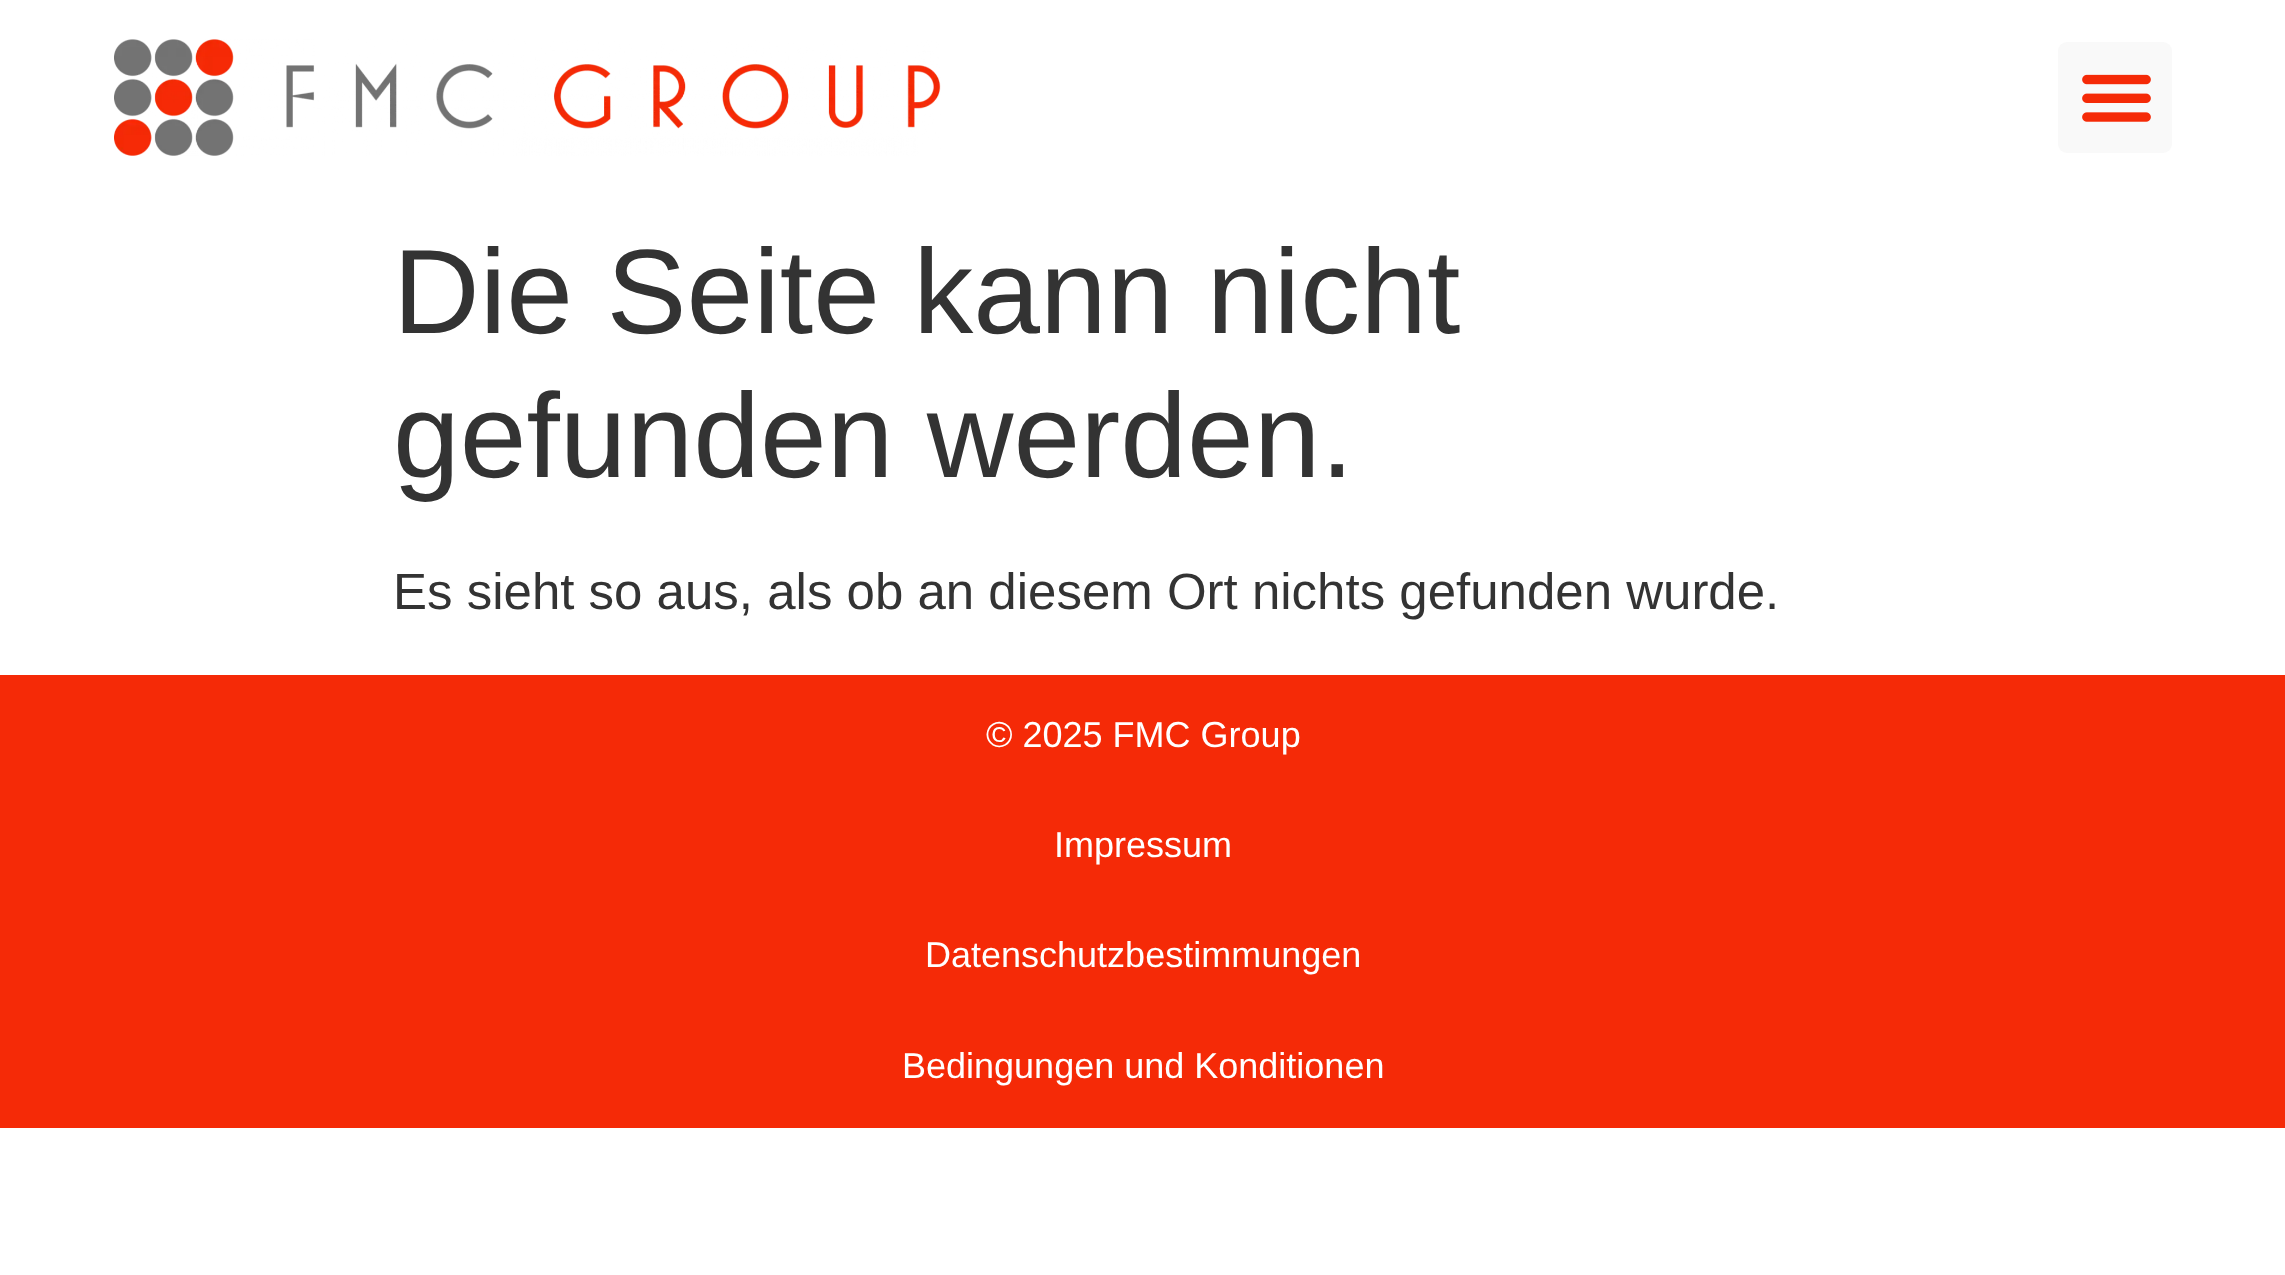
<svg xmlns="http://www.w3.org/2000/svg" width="2285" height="1275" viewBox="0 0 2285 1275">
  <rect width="100%" height="100%" fill="rgb(255,255,255)"/>
  <image x="114" y="39" width="827" height="117" href="pic1.png"/>
  <rect x="2058" y="42" width="114" height="111" rx="9" fill="rgb(249,249,249)"/>
  <image x="2082" y="74" width="69" height="48" href="pic2.png"/>
  <g font-family="Liberation Sans" font-size="120" fill="rgb(51,51,51)">
    <text>
      <tspan x="393" y="333">Die Seite kann nicht</tspan>
      <tspan x="393" y="477">gefunden werden.</tspan>
    </text>
  </g>
  <text x="393" y="609" font-family="Liberation Sans" font-size="51" fill="rgb(51,51,51)">Es sieht so aus, als ob an diesem Ort nichts gefunden wurde.</text>
  <rect x="0" y="675" width="2285" height="453" fill="rgb(245,42,7)"/>
  <g font-family="Liberation Sans" font-size="36" fill="rgb(255,255,255)">
    <text x="986" y="747">© 2025 FMC Group</text>
    <text x="1054" y="857">Impressum</text>
    <text x="925" y="967">Datenschutzbestimmungen</text>
    <text x="902" y="1078">Bedingungen und Konditionen</text>
  </g>
</svg>
